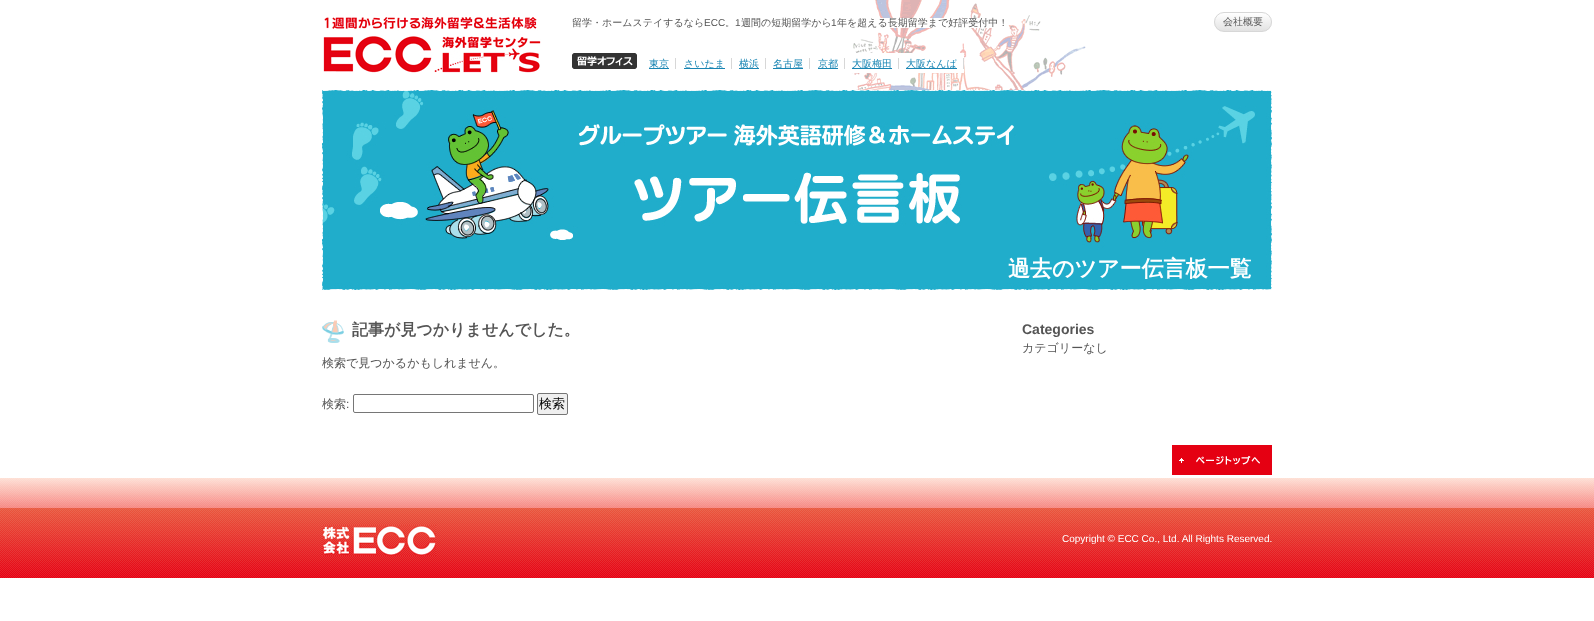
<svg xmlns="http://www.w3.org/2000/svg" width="1594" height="621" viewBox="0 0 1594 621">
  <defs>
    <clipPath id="clip1"><rect x="1214" y="12" width="58" height="20" rx="10"/></clipPath>
    <linearGradient id="g1" gradientUnits="userSpaceOnUse" x1="1215" y1="13" x2="1215" y2="31"><stop offset="0" stop-color="rgb(255,255,255)"/><stop offset="1" stop-color="rgb(226,226,226)"/></linearGradient>
  </defs>
  <rect width="100%" height="100%" fill="rgb(255,255,255)"/>
  <image x="852" y="0" width="234" height="90" href="pic1.png"/>
  <image x="323" y="17" width="218" height="56" href="pic2.png"/>
  <rect x="880" y="18" width="113" height="10" fill="rgb(255,255,255)"/>
  <text x="572" y="26" font-family="WenQuanYi Zen Hei" font-size="10" font-weight="500" fill="rgb(85,85,85)">留学・ホームステイするなら</text>
  <text x="704" y="26" font-family="Liberation Sans" font-size="10" fill="rgb(85,85,85)">ECC</text>
  <text x="725" y="26" font-family="WenQuanYi Zen Hei" font-size="10" font-weight="500" fill="rgb(85,85,85)">。</text>
  <text x="735" y="26" font-family="Liberation Sans" font-size="10" fill="rgb(85,85,85)">1</text>
  <text x="741" y="26" font-family="WenQuanYi Zen Hei" font-size="10" font-weight="500" fill="rgb(85,85,85)">週間の短期留学から</text>
  <text x="831" y="26" font-family="Liberation Sans" font-size="10" fill="rgb(85,85,85)">1</text>
  <text x="837" y="26" font-family="WenQuanYi Zen Hei" font-size="10" font-weight="500" fill="rgb(85,85,85)">年を超える長期留学まで好評受付中！</text>
  <g clip-path="url(#clip1)">
    <rect x="1214" y="13" width="58" height="18" fill="url(#g1)"/>
  </g>
  <rect x="1214.5" y="12.5" width="57" height="19" rx="9.5" fill="none" stroke="rgb(215,215,215)"/>
  <text x="1223" y="25" font-family="WenQuanYi Zen Hei" font-size="10" font-weight="500" fill="rgb(85,85,85)">会社概要</text>
  <rect x="852" y="53" width="112" height="20" fill="rgb(255,255,255)"/>
  <image x="572" y="53" width="65" height="16" href="pic3.png"/>
  <rect x="649" y="68" width="20" height="1" fill="rgb(25,133,179)"/>
  <text x="649" y="67" font-family="WenQuanYi Zen Hei" font-size="10" font-weight="500" fill="rgb(25,133,179)">東京</text>
  <rect x="675" y="58" width="1" height="11" fill="rgb(215,215,215)"/>
  <rect x="684" y="68" width="41" height="1" fill="rgb(25,133,179)"/>
  <text x="684" y="67" font-family="WenQuanYi Zen Hei" font-size="10" font-weight="500" fill="rgb(25,133,179)">さいたま</text>
  <rect x="731" y="58" width="1" height="11" fill="rgb(215,215,215)"/>
  <rect x="739" y="68" width="20" height="1" fill="rgb(25,133,179)"/>
  <text x="739" y="67" font-family="WenQuanYi Zen Hei" font-size="10" font-weight="500" fill="rgb(25,133,179)">横浜</text>
  <rect x="765" y="58" width="1" height="11" fill="rgb(215,215,215)"/>
  <rect x="773" y="68" width="30" height="1" fill="rgb(25,133,179)"/>
  <text x="773" y="67" font-family="WenQuanYi Zen Hei" font-size="10" font-weight="500" fill="rgb(25,133,179)">名古屋</text>
  <rect x="809" y="58" width="1" height="11" fill="rgb(215,215,215)"/>
  <rect x="818" y="68" width="20" height="1" fill="rgb(25,133,179)"/>
  <text x="818" y="67" font-family="WenQuanYi Zen Hei" font-size="10" font-weight="500" fill="rgb(25,133,179)">京都</text>
  <rect x="844" y="58" width="1" height="11" fill="rgb(215,215,215)"/>
  <rect x="852" y="68" width="40" height="1" fill="rgb(25,133,179)"/>
  <text x="852" y="67" font-family="WenQuanYi Zen Hei" font-size="10" font-weight="500" fill="rgb(25,133,179)">大阪梅田</text>
  <rect x="898" y="58" width="1" height="11" fill="rgb(215,215,215)"/>
  <rect x="906" y="68" width="51" height="1" fill="rgb(25,133,179)"/>
  <text x="906" y="67" font-family="WenQuanYi Zen Hei" font-size="10" font-weight="500" fill="rgb(25,133,179)">大阪なんば</text>
  <rect x="963" y="58" width="1" height="11" fill="rgb(215,215,215)"/>
  <image x="322" y="90" width="950" height="200" href="pic4.png"/>
  <text x="1008" y="276" font-family="WenQuanYi Zen Hei" font-size="22" font-weight="bold" fill="rgb(255,255,255)">過去のツアー伝言板一覧</text>
  <image x="322" y="320" width="22" height="23" href="pic5.png"/>
  <text x="352" y="335" font-family="WenQuanYi Zen Hei" font-size="16" font-weight="bold" fill="rgb(85,85,85)">記事が見つかりませんでした。</text>
  <g font-family="WenQuanYi Zen Hei" font-size="12" font-weight="500" fill="rgb(85,85,85)">
    <text x="322" y="367">検索で見つかるかもしれません。</text>
    <text x="322" y="408">検索</text>
  </g>
  <text x="346" y="408" font-family="Liberation Sans" font-size="12" fill="rgb(85,85,85)">:</text>
  <rect x="353.5" y="394.5" width="180" height="18" rx="1.5" fill="none" stroke="rgb(118,118,118)"/>
  <rect x="537.5" y="393.5" width="30" height="21" rx="1.5" fill="rgb(239,239,239)" stroke="rgb(118,118,118)"/>
  <text x="539" y="408" font-family="WenQuanYi Zen Hei" font-size="13" font-weight="500" fill="rgb(0,0,0)">検索</text>
  <text x="1022" y="334" font-family="Liberation Sans" font-size="14" font-weight="bold" fill="rgb(85,85,85)">Categories</text>
  <text x="1022" y="352" font-family="WenQuanYi Zen Hei" font-size="12" font-weight="500" fill="rgb(85,85,85)">カテゴリーなし</text>
  <image x="1172" y="445" width="100" height="30" href="pic6.png"/>
  <image x="0" y="478" width="1594" height="100" href="pic7.png"/>
  <image x="322" y="525" width="114" height="31" href="pic8.png"/>
  <text x="1062" y="542" font-family="Liberation Sans" font-size="10" fill="rgb(255,255,255)">Copyright © ECC Co., Ltd. All Rights Reserved.</text>
</svg>
